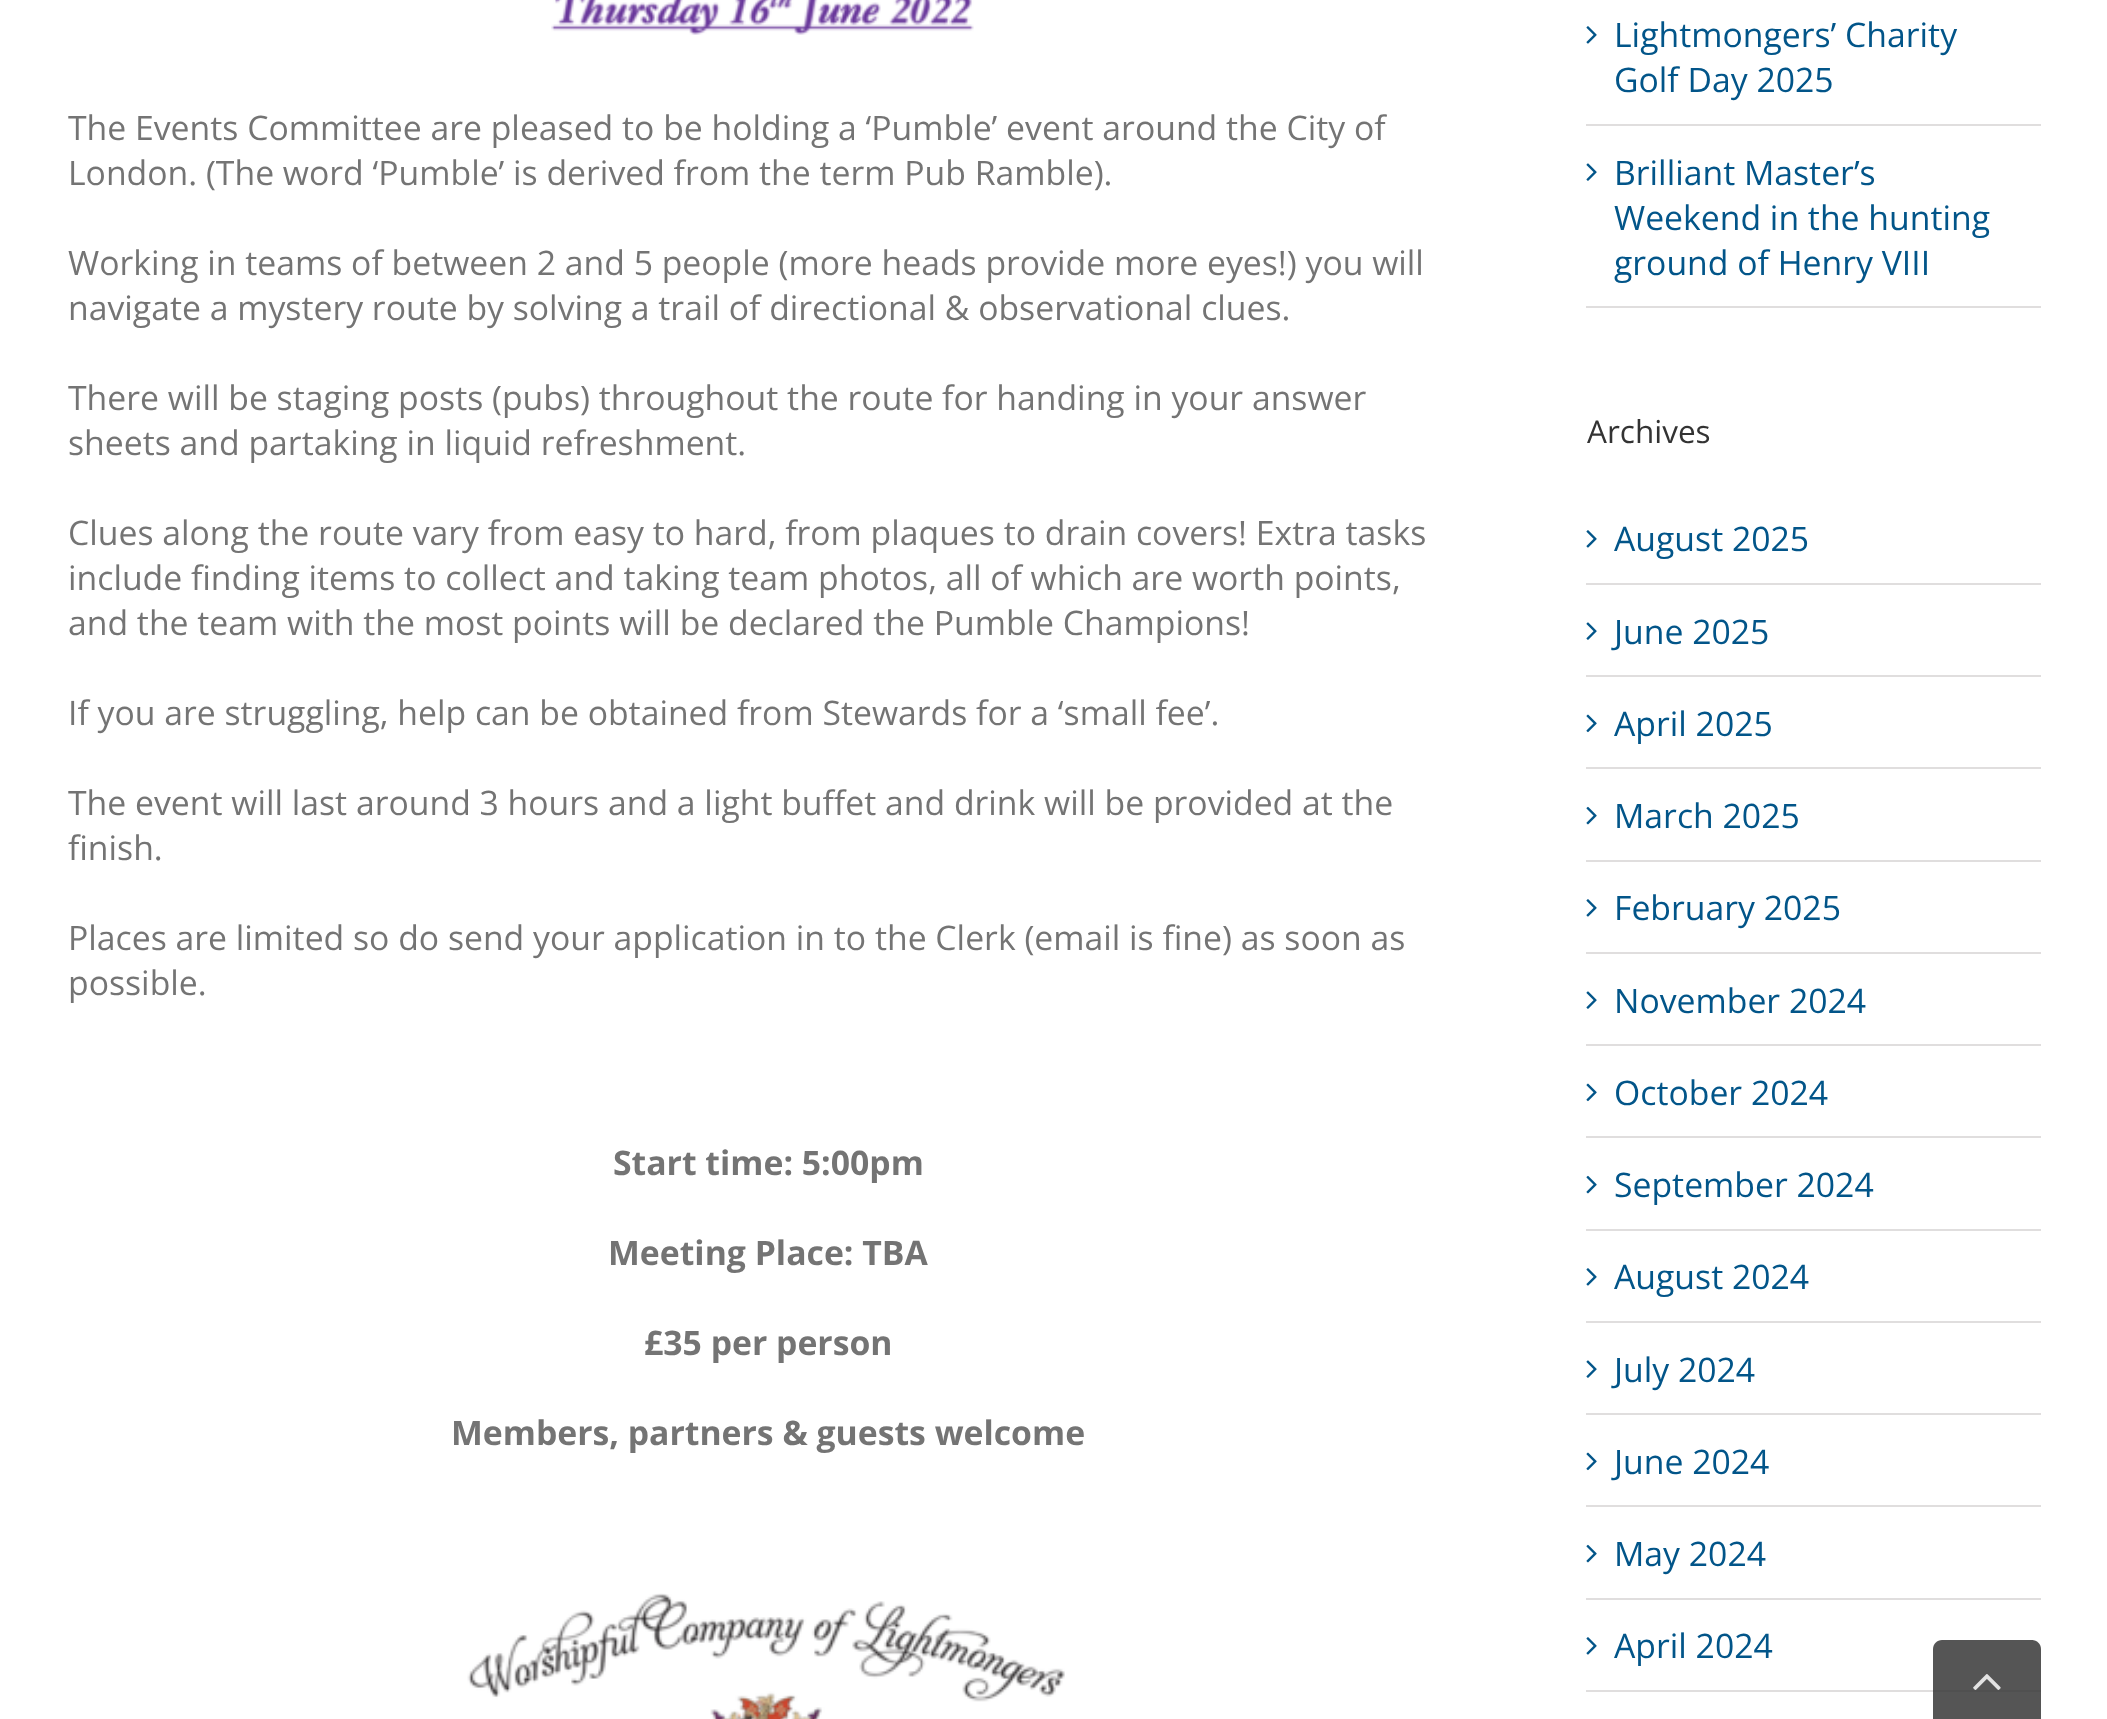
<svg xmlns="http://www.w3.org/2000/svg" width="2107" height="1719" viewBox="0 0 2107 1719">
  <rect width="100%" height="100%" fill="rgb(255,255,255)"/>
  <image x="551" y="0" width="423" height="35" href="pic1.png"/>
  <g font-family="Open Sans" font-size="33.75" fill="rgb(116,116,116)">
    <text>
      <tspan x="68" y="140">The Events Committee are pleased to be holding a ‘Pumble’ event around the City of</tspan>
      <tspan x="68" y="185">London. (The word ‘Pumble’ is derived from the term Pub Ramble).</tspan>
    </text>
    <text>
      <tspan x="68" y="275">Working in teams of between 2 and 5 people (more heads provide more eyes!) you will</tspan>
      <tspan x="68" y="320">navigate a mystery route by solving a trail of directional &amp; observational clues.</tspan>
    </text>
    <text>
      <tspan x="68" y="410">There will be staging posts (pubs) throughout the route for handing in your answer</tspan>
      <tspan x="68" y="455">sheets and partaking in liquid refreshment.</tspan>
    </text>
    <text>
      <tspan x="68" y="545">Clues along the route vary from easy to hard, from plaques to drain covers! Extra tasks</tspan>
      <tspan x="68" y="590">include finding items to collect and taking team photos, all of which are worth points,</tspan>
      <tspan x="68" y="635">and the team with the most points will be declared the Pumble Champions!</tspan>
    </text>
    <text x="68" y="725">If you are struggling, help can be obtained from Stewards for a ‘small fee’.</text>
    <text>
      <tspan x="68" y="815">The event will last around 3 hours and a light buffet and drink will be provided at the</tspan>
      <tspan x="68" y="860">finish.</tspan>
    </text>
    <text>
      <tspan x="68" y="950">Places are limited so do send your application in to the Clerk (email is fine) as soon as</tspan>
      <tspan x="68" y="995">possible.</tspan>
    </text>
  </g>
  <g font-family="Open Sans" font-size="33.75" font-weight="bold" fill="rgb(116,116,116)">
    <text x="613" y="1175">Start time: 5:00pm</text>
    <text x="608" y="1265">Meeting Place: TBA</text>
    <text x="644" y="1355">£35 per person</text>
    <text x="451" y="1445">Members, partners &amp; guests welcome</text>
  </g>
  <image x="467" y="1593" width="598" height="126" href="pic2.png"/>
  <rect x="1586" y="124" width="455" height="2" fill="rgb(224,222,222)"/>
  <image x="1586" y="26" width="11" height="18" href="pic3.png"/>
  <g font-family="Open Sans" font-size="33.75" fill="rgb(2,85,137)">
    <text>
      <tspan x="1614" y="47">Lightmongers’ Charity</tspan>
      <tspan x="1614" y="92">Golf Day 2025</tspan>
    </text>
  </g>
  <rect x="1586" y="306" width="455" height="2" fill="rgb(224,222,222)"/>
  <image x="1586" y="163" width="11" height="18" href="pic4.png"/>
  <g font-family="Open Sans" font-size="33.75" fill="rgb(2,85,137)">
    <text>
      <tspan x="1614" y="185">Brilliant Master’s</tspan>
      <tspan x="1614" y="230">Weekend in the hunting</tspan>
      <tspan x="1614" y="275">ground of Henry VIII</tspan>
    </text>
  </g>
  <text x="1587" y="443" font-family="Open Sans" font-size="31.5" fill="rgb(51,51,51)">Archives</text>
  <rect x="1586" y="583" width="455" height="2" fill="rgb(224,222,222)"/>
  <image x="1586" y="530" width="11" height="18" href="pic3.png"/>
  <text x="1614" y="551" font-family="Open Sans" font-size="33.75" fill="rgb(2,85,137)">August 2025</text>
  <rect x="1586" y="675" width="455" height="2" fill="rgb(224,222,222)"/>
  <image x="1586" y="622" width="11" height="18" href="pic4.png"/>
  <text x="1614" y="644" font-family="Open Sans" font-size="33.75" fill="rgb(2,85,137)">June 2025</text>
  <rect x="1586" y="767" width="455" height="2" fill="rgb(224,222,222)"/>
  <image x="1586" y="714" width="11" height="19" href="pic5.png"/>
  <text x="1614" y="736" font-family="Open Sans" font-size="33.75" fill="rgb(2,85,137)">April 2025</text>
  <rect x="1586" y="860" width="455" height="2" fill="rgb(224,222,222)"/>
  <image x="1586" y="806" width="11" height="19" href="pic6.png"/>
  <text x="1614" y="828" font-family="Open Sans" font-size="33.75" fill="rgb(2,85,137)">March 2025</text>
  <rect x="1586" y="952" width="455" height="2" fill="rgb(224,222,222)"/>
  <image x="1586" y="899" width="11" height="18" href="pic3.png"/>
  <text x="1614" y="920" font-family="Open Sans" font-size="33.75" fill="rgb(2,85,137)">February 2025</text>
  <rect x="1586" y="1044" width="455" height="2" fill="rgb(224,222,222)"/>
  <image x="1586" y="991" width="11" height="18" href="pic4.png"/>
  <text x="1614" y="1013" font-family="Open Sans" font-size="33.75" fill="rgb(2,85,137)">November 2024</text>
  <rect x="1586" y="1136" width="455" height="2" fill="rgb(224,222,222)"/>
  <image x="1586" y="1083" width="11" height="19" href="pic5.png"/>
  <text x="1614" y="1105" font-family="Open Sans" font-size="33.75" fill="rgb(2,85,137)">October 2024</text>
  <rect x="1586" y="1229" width="455" height="2" fill="rgb(224,222,222)"/>
  <image x="1586" y="1175" width="11" height="19" href="pic6.png"/>
  <text x="1614" y="1197" font-family="Open Sans" font-size="33.75" fill="rgb(2,85,137)">September 2024</text>
  <rect x="1586" y="1321" width="455" height="2" fill="rgb(224,222,222)"/>
  <image x="1586" y="1268" width="11" height="18" href="pic3.png"/>
  <text x="1614" y="1289" font-family="Open Sans" font-size="33.75" fill="rgb(2,85,137)">August 2024</text>
  <rect x="1586" y="1413" width="455" height="2" fill="rgb(224,222,222)"/>
  <image x="1586" y="1360" width="11" height="18" href="pic4.png"/>
  <text x="1614" y="1382" font-family="Open Sans" font-size="33.75" fill="rgb(2,85,137)">July 2024</text>
  <rect x="1586" y="1505" width="455" height="2" fill="rgb(224,222,222)"/>
  <image x="1586" y="1452" width="11" height="19" href="pic5.png"/>
  <text x="1614" y="1474" font-family="Open Sans" font-size="33.75" fill="rgb(2,85,137)">June 2024</text>
  <rect x="1586" y="1598" width="455" height="2" fill="rgb(224,222,222)"/>
  <image x="1586" y="1544" width="11" height="19" href="pic6.png"/>
  <text x="1614" y="1566" font-family="Open Sans" font-size="33.75" fill="rgb(2,85,137)">May 2024</text>
  <rect x="1586" y="1690" width="455" height="2" fill="rgb(224,222,222)"/>
  <image x="1586" y="1637" width="11" height="18" href="pic3.png"/>
  <text x="1614" y="1658" font-family="Open Sans" font-size="33.75" fill="rgb(2,85,137)">April 2024</text>
  <path d="M1942 1640H2032C2037 1640 2041 1644 2041 1649V1719H1933V1649C1933 1644 1937 1640 1942 1640Z" fill="rgba(51,51,51,0.83)"/>
  <image x="1973" y="1674" width="28" height="16" href="pic7.png"/>
</svg>
